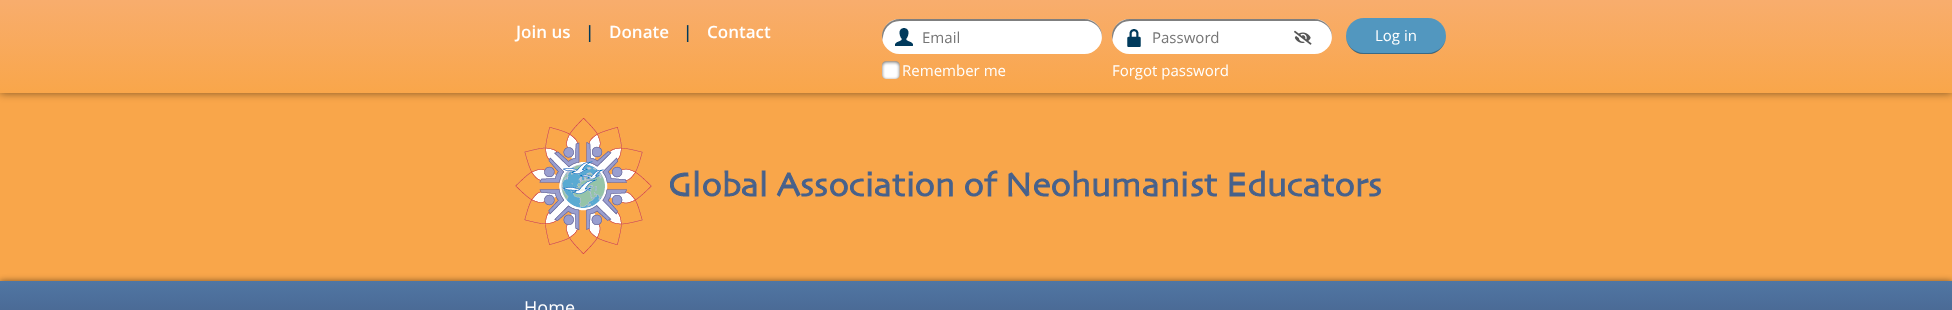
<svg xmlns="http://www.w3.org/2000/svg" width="1952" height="310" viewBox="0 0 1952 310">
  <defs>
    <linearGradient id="g1" gradientUnits="userSpaceOnUse" x1="976" y1="0" x2="976" y2="93"><stop offset="0" stop-color="rgb(248,173,109)"/><stop offset="1" stop-color="rgb(249,166,74)"/></linearGradient>
    <linearGradient id="g2" gradientUnits="userSpaceOnUse" x1="976" y1="281" x2="976" y2="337"><stop offset="0" stop-color="rgb(80,118,163)"/><stop offset="1" stop-color="rgb(70,96,138)"/></linearGradient>
  </defs>
  <rect width="100%" height="100%" fill="rgb(249,166,74)"/>
  <rect x="0" y="0" width="1952" height="93" fill="rgba(0,0,0,0.5)" filter="blur(4px)"/>
  <rect x="0" y="0" width="1952" height="93" fill="url(#g1)"/>
  <text x="516" y="38" font-family="Open Sans" font-size="17" font-weight="600" fill="rgb(255,255,255)">Join us</text>
  <text x="585" y="38" font-family="Open Sans" font-size="17" font-weight="600" fill="rgb(0,58,92)">|</text>
  <text x="609" y="38" font-family="Open Sans" font-size="17" font-weight="600" fill="rgb(255,255,255)">Donate</text>
  <text x="683" y="38" font-family="Open Sans" font-size="17" font-weight="600" fill="rgb(0,58,92)">|</text>
  <text x="707" y="38" font-family="Open Sans" font-size="17" font-weight="600" fill="rgb(255,255,255)">Contact</text>
  <rect x="882" y="19" width="220" height="35" rx="17.5" fill="rgb(255,255,255)"/>
  <image x="895" y="28" width="18" height="18" href="pic1.png"/>
  <path d="M900 21H1088C1097 23 1102 30 1102 38V36C1102 27 1094 19 1084 19H900C890 19 882 27 882 36L883 41C882 32 888 21 900 21Z" fill="rgba(0,0,0,0.5)"/>
  <text x="922" y="43" font-family="Open Sans" font-size="15" fill="rgb(117,117,117)">Email</text>
  <rect x="1112" y="19" width="220" height="35" rx="17.5" fill="rgb(255,255,255)"/>
  <image x="1127" y="29" width="14" height="18" href="pic2.png"/>
  <path d="M1130 21H1318C1327 23 1332 30 1332 38V36C1332 27 1324 19 1314 19H1130C1120 19 1112 27 1112 36L1113 41C1112 32 1118 21 1130 21Z" fill="rgba(0,0,0,0.5)"/>
  <text x="1152" y="43" font-family="Open Sans" font-size="15" fill="rgb(117,117,117)">Password</text>
  <image x="1294" y="30" width="18" height="15" href="pic3.png"/>
  <rect x="1346" y="18" width="100" height="36" rx="18" fill="rgb(82,151,191)"/>
  <path d="M1346 36C1346 44 1352 52 1360 54H1375H1432C1440 52 1446 44 1446 36C1446 45 1438 53 1428 53H1364C1354 53 1346 45 1346 36Z" fill="rgba(0,0,0,0.3)"/>
  <text x="1375" y="41" font-family="Open Sans" font-size="15" fill="rgb(255,255,255)">Log in</text>
  <image x="882" y="61" width="18" height="18" href="pic4.png"/>
  <g font-family="Open Sans" font-size="15" fill="rgb(255,255,255)">
    <text x="902" y="76">Remember me</text>
    <text x="1112" y="76">Forgot password</text>
  </g>
  <image x="515" y="118" width="866" height="136" href="pic5.png"/>
  <rect x="0" y="281" width="1952" height="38" fill="rgba(0,0,0,0.5)" filter="blur(3px)"/>
  <rect x="0" y="281" width="1952" height="29" fill="url(#g2)"/>
  <text x="524" y="314" font-family="Open Sans" font-size="18" fill="rgb(255,255,255)">Home</text>
</svg>
